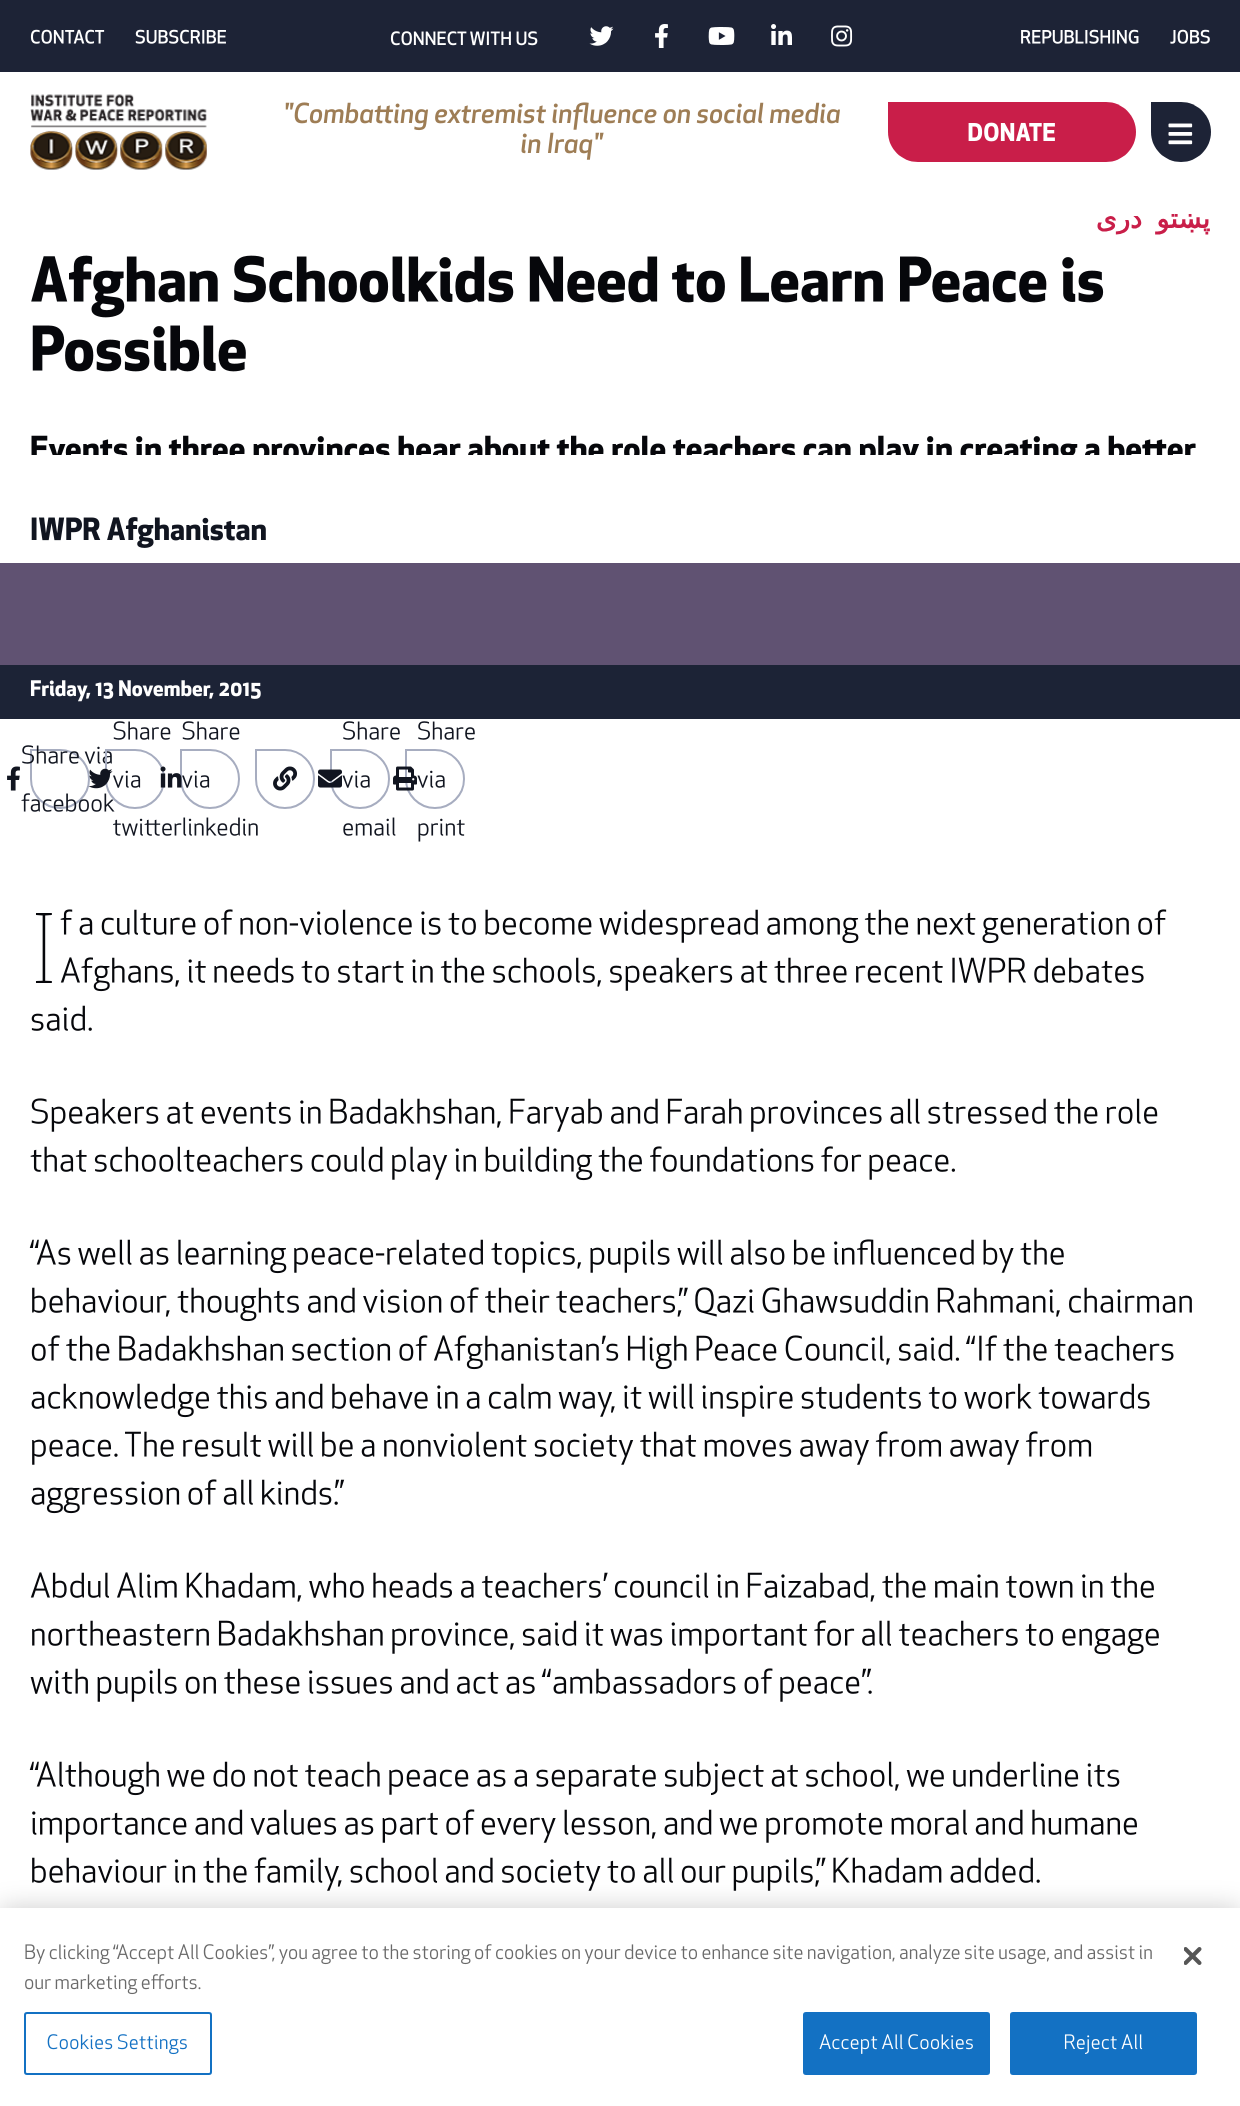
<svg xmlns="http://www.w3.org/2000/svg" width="1240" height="2106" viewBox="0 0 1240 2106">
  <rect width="100%" height="100%" fill="rgb(255,255,255)"/>
  <rect x="0" y="0" width="1240" height="72" fill="rgb(29,35,54)"/>
  <image x="1170" y="29" width="40" height="15" href="pic1.png"/>
  <image x="1021" y="29" width="118" height="15" href="pic2.png"/>
  <image x="831" y="25" width="22" height="22" href="pic3.png"/>
  <image x="771" y="24" width="21" height="21" href="pic4.png"/>
  <image x="708" y="27" width="27" height="18" href="pic5.png"/>
  <image x="655" y="24" width="13" height="24" href="pic6.png"/>
  <image x="589" y="26" width="25" height="20" href="pic7.png"/>
  <image x="390" y="31" width="148" height="15" href="pic8.png"/>
  <image x="135" y="29" width="91" height="15" href="pic9.png"/>
  <image x="30" y="29" width="75" height="15" href="pic10.png"/>
  <path d="M1151 102H1181C1197.5 102 1211 115.5 1211 132C1211 148.5 1197.5 162 1181 162C1164.5 162 1151 148.5 1151 132Z" fill="rgb(29,35,54)"/>
  <image x="1168" y="123" width="25" height="22" href="pic11.png"/>
  <path d="M888 102H1106C1122.5 102 1136 115.5 1136 132C1136 148.5 1122.5 162 1106 162H918C901.5 162 888 148.5 888 132Z" fill="rgb(201,30,73)"/>
  <image x="968" y="122" width="87" height="20" href="pic12.png"/>
  <image x="285" y="102" width="555" height="29" href="pic13.png"/>
  <image x="521" y="132" width="83" height="28" href="pic14.png"/>
  <image x="30" y="94" width="177" height="76" href="pic15.png"/>
  <g font-family="DejaVu Sans" font-size="27" font-weight="bold" direction="rtl" fill="rgb(201,30,73)">
    <text x="1210" y="228">پښتو</text>
    <text x="1142" y="228">دری</text>
  </g>
  <image x="31" y="255" width="1073" height="63" href="pic16.png"/>
  <image x="32" y="325" width="214" height="47" href="pic17.png"/>
  <image x="31" y="435" width="1165" height="20" href="pic18.png"/>
  <image x="31" y="517" width="235" height="31" href="pic19.png"/>
  <rect x="0" y="563" width="1240" height="102" fill="rgb(96,82,114)"/>
  <rect x="0" y="665" width="1240" height="54" fill="rgb(28,35,54)"/>
  <image x="30" y="680" width="231" height="22" href="pic20.png"/>
  <path d="M406 750H435C451 750 464 763 464 779C464 795 451 808 435 808C419 808 406 795 406 779Z" fill="none" stroke="rgb(167,173,192)" stroke-width="2"/>
  <image x="418" y="721" width="57" height="19" href="pic21.png"/>
  <image x="417" y="770" width="28" height="18" href="pic22.png"/>
  <image x="418" y="818" width="47" height="24" href="pic23.png"/>
  <image x="393" y="766" width="24" height="25" href="pic24.png"/>
  <path d="M331 750H360C376 750 389 763 389 779C389 795 376 808 360 808C344 808 331 795 331 779Z" fill="none" stroke="rgb(167,173,192)" stroke-width="2"/>
  <image x="343" y="721" width="57" height="19" href="pic21.png"/>
  <image x="342" y="770" width="28" height="18" href="pic22.png"/>
  <image x="343" y="817" width="53" height="19" href="pic25.png"/>
  <image x="318" y="769" width="24" height="19" href="pic26.png"/>
  <path d="M256 750H285C301 750 314 763 314 779C314 795 301 808 285 808C269 808 256 795 256 779Z" fill="none" stroke="rgb(167,173,192)" stroke-width="2"/>
  <image x="273" y="766" width="25" height="25" href="pic27.png"/>
  <path d="M181 750H210C226 750 239 763 239 779C239 795 226 808 210 808C194 808 181 795 181 779Z" fill="none" stroke="rgb(167,173,192)" stroke-width="2"/>
  <image x="182" y="721" width="58" height="19" href="pic28.png"/>
  <image x="182" y="770" width="28" height="18" href="pic29.png"/>
  <image x="183" y="817" width="75" height="19" href="pic30.png"/>
  <path d="M31 750H60C76 750 89 763 89 779C89 795 76 808 60 808C44 808 31 795 31 779Z" fill="none" stroke="rgb(167,173,192)" stroke-width="2"/>
  <image x="22" y="745" width="90" height="19" href="pic35.png"/>
  <image x="21" y="793" width="94" height="19" href="pic36.png"/>
  <path d="M106 750H135C151 750 164 763 164 779C164 795 151 808 135 808C119 808 106 795 106 779Z" fill="none" stroke="rgb(167,173,192)" stroke-width="2"/>
  <image x="160" y="766" width="22" height="22" href="pic31.png"/>
  <image x="113" y="721" width="58" height="19" href="pic28.png"/>
  <image x="113" y="770" width="28" height="18" href="pic32.png"/>
  <image x="113" y="818" width="69" height="18" href="pic33.png"/>
  <image x="88" y="768" width="25" height="21" href="pic34.png"/>
  <image x="7" y="766" width="13" height="25" href="pic37.png"/>
  <image x="60" y="909" width="1107" height="35" href="pic38.png"/>
  <text x="30" y="983" font-family="Noto Sans" font-size="98" font-weight="100" fill="rgb(6,7,11)">I</text>
  <image x="60" y="957" width="1084" height="35" href="pic39.png"/>
  <image x="31" y="1005" width="61" height="26" href="pic40.png"/>
  <image x="31" y="1098" width="1127" height="34" href="pic41.png"/>
  <image x="30" y="1146" width="925" height="35" href="pic42.png"/>
  <image x="29" y="1239" width="1035" height="35" href="pic43.png"/>
  <image x="32" y="1287" width="1160" height="35" href="pic44.png"/>
  <image x="31" y="1335" width="1143" height="35" href="pic45.png"/>
  <image x="31" y="1383" width="1119" height="35" href="pic46.png"/>
  <image x="32" y="1431" width="1060" height="34" href="pic47.png"/>
  <image x="31" y="1479" width="314" height="35" href="pic48.png"/>
  <image x="30" y="1572" width="1124" height="30" href="pic49.png"/>
  <image x="32" y="1620" width="1127" height="35" href="pic50.png"/>
  <image x="30" y="1668" width="842" height="34" href="pic51.png"/>
  <image x="29" y="1761" width="1091" height="35" href="pic52.png"/>
  <image x="32" y="1809" width="1105" height="34" href="pic53.png"/>
  <image x="32" y="1857" width="1008" height="34" href="pic54.png"/>
  <rect x="0" y="1908" width="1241" height="198" fill="rgba(0,0,0,0.2)" filter="blur(13.5px)"/>
  <rect x="0" y="1908" width="1240" height="198" fill="rgb(255,255,255)"/>
  <image x="25" y="1944" width="1127" height="21" href="pic55.png"/>
  <image x="25" y="1974" width="176" height="21" href="pic56.png"/>
  <rect x="1011" y="2013" width="185" height="61" rx="2" fill="rgb(19,113,195)" stroke="rgb(19,113,195)" stroke-width="2"/>
  <image x="1064" y="2034" width="79" height="20" href="pic57.png"/>
  <rect x="804" y="2013" width="185" height="61" rx="2" fill="rgb(19,113,195)" stroke="rgb(19,113,195)" stroke-width="2"/>
  <image x="819" y="2034" width="154" height="20" href="pic58.png"/>
  <rect x="25" y="2013" width="186" height="61" rx="2" fill="none" stroke="rgb(19,113,195)" stroke-width="2"/>
  <image x="47" y="2034" width="140" height="21" href="pic59.png"/>
  <image x="1184" y="1947" width="18" height="18" href="pic60.png"/>
</svg>
